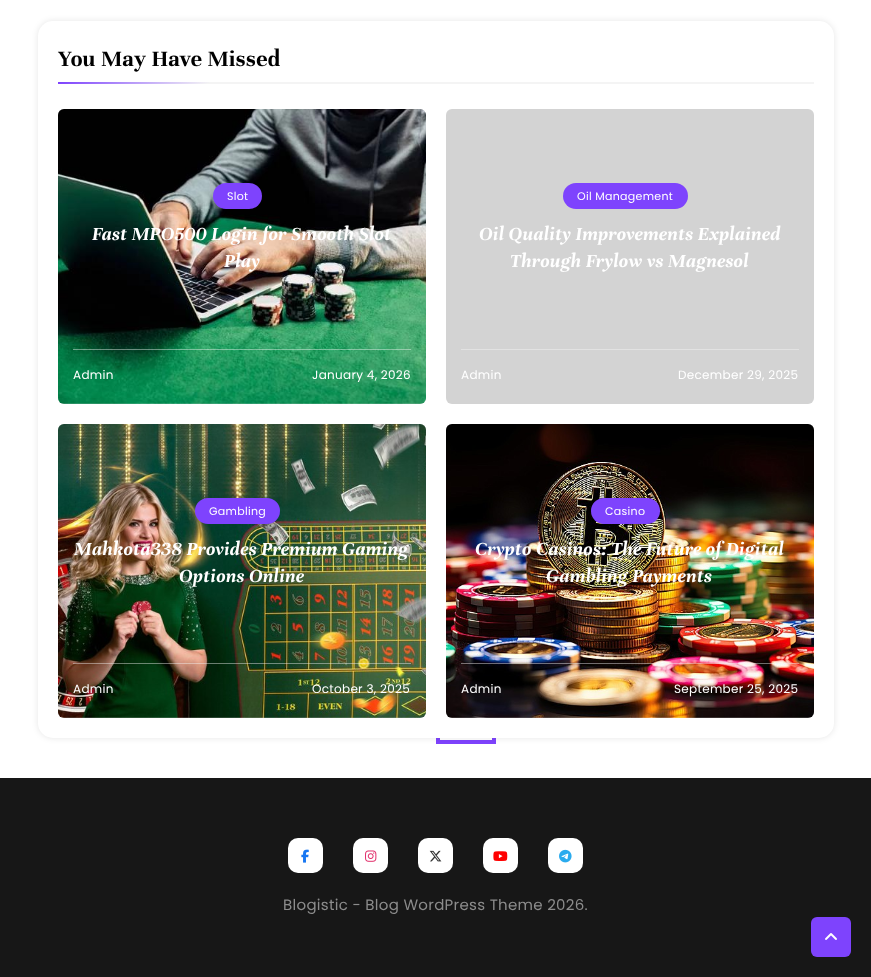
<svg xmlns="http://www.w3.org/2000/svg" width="871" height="977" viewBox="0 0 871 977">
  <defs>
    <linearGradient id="g1" gradientUnits="userSpaceOnUse" x1="124" y1="58" x2="143" y2="108"><stop offset="0" stop-color="rgb(126,67,253)"/><stop offset="1" stop-color="rgb(244,244,244)"/></linearGradient>
  </defs>
  <rect width="100%" height="100%" fill="rgb(255,255,255)"/>
  <rect x="438" y="686" width="56" height="56" fill="none" stroke="rgb(126,67,253)" stroke-width="4"/>
  <rect x="38" y="21" width="796" height="717" rx="15" fill="rgba(0,0,0,0.1)" filter="blur(3px)"/>
  <rect x="38" y="21" width="796" height="717" rx="15" fill="rgb(255,255,255)"/>
  <rect x="209" y="82" width="605" height="2" fill="rgb(244,244,244)"/>
  <text x="58" y="66" font-family="Unna" font-size="24" font-weight="bold" letter-spacing="0.3" fill="rgb(0,0,0)">You May Have Missed</text>
  <rect x="58" y="82" width="151" height="2" fill="url(#g1)"/>
  <rect x="58" y="109" width="368" height="295" rx="6" fill="rgb(211,211,211)"/>
  <image x="58" y="109" width="368" height="295" href="pic1.png"/>
  <rect x="213" y="183" width="49" height="26" rx="13" fill="rgb(126,67,253)"/>
  <text x="227" y="200" font-family="Poppins" font-size="11" letter-spacing="0.3" fill="rgb(255,255,255)">Slot</text>
  <g font-family="Unna" font-size="20" font-weight="bold" font-style="italic" letter-spacing="0.3" fill="rgb(255,255,255)">
    <text x="92" y="240">Fast MPO500 Login for Smooth Slot</text>
    <text x="224" y="267">Play</text>
  </g>
  <rect x="73" y="349" width="338" height="1" fill="rgba(244,244,244,0.44)"/>
  <g font-family="Poppins" font-size="12" letter-spacing="0.3" fill="rgb(255,255,255)">
    <text x="73" y="379">Admin</text>
    <text x="312" y="379">January 4, 2026</text>
  </g>
  <rect x="446" y="109" width="368" height="295" rx="6" fill="rgb(211,211,211)"/>
  <rect x="563" y="183" width="125" height="26" rx="13" fill="rgb(126,67,253)"/>
  <text x="577" y="200" font-family="Poppins" font-size="11" letter-spacing="0.3" fill="rgb(255,255,255)">Oil Management</text>
  <g font-family="Unna" font-size="20" font-weight="bold" font-style="italic" letter-spacing="0.3" fill="rgb(255,255,255)">
    <text x="479" y="240">Oil Quality Improvements Explained</text>
    <text x="510" y="267">Through Frylow vs Magnesol</text>
  </g>
  <rect x="461" y="349" width="338" height="1" fill="rgb(226,226,226)"/>
  <g font-family="Poppins" font-size="12" letter-spacing="0.3" fill="rgb(255,255,255)">
    <text x="461" y="379">Admin</text>
    <text x="678" y="379">December 29, 2025</text>
  </g>
  <rect x="58" y="424" width="368" height="294" rx="6" fill="rgb(211,211,211)"/>
  <image x="58" y="424" width="368" height="294" href="pic2.png"/>
  <rect x="195" y="498" width="85" height="26" rx="13" fill="rgb(126,67,253)"/>
  <text x="209" y="515" font-family="Poppins" font-size="11" letter-spacing="0.3" fill="rgb(255,255,255)">Gambling</text>
  <g font-family="Unna" font-size="20" font-weight="bold" font-style="italic" letter-spacing="0.3" fill="rgb(255,255,255)">
    <text x="74" y="555">Mahkota338 Provides Premium Gaming</text>
    <text x="179" y="582">Options Online</text>
  </g>
  <rect x="73" y="663" width="338" height="1" fill="rgba(244,244,244,0.44)"/>
  <g font-family="Poppins" font-size="12" letter-spacing="0.3" fill="rgb(255,255,255)">
    <text x="73" y="693">Admin</text>
    <text x="312" y="693">October 3, 2025</text>
  </g>
  <rect x="446" y="424" width="368" height="294" rx="6" fill="rgb(211,211,211)"/>
  <image x="446" y="424" width="368" height="294" href="pic3.png"/>
  <rect x="591" y="498" width="69" height="26" rx="13" fill="rgb(126,67,253)"/>
  <text x="605" y="515" font-family="Poppins" font-size="11" letter-spacing="0.3" fill="rgb(255,255,255)">Casino</text>
  <g font-family="Unna" font-size="20" font-weight="bold" font-style="italic" letter-spacing="0.3" fill="rgb(255,255,255)">
    <text x="475" y="555">Crypto Casinos: The Future of Digital</text>
    <text x="546" y="582">Gambling Payments</text>
  </g>
  <rect x="461" y="663" width="338" height="1" fill="rgba(244,244,244,0.44)"/>
  <g font-family="Poppins" font-size="12" letter-spacing="0.3" fill="rgb(255,255,255)">
    <text x="461" y="693">Admin</text>
    <text x="674" y="693">September 25, 2025</text>
  </g>
  <rect x="0" y="778" width="871" height="199" fill="rgb(23,23,23)"/>
  <rect x="288" y="838" width="35" height="35" rx="10" fill="rgb(255,255,255)"/>
  <image x="301" y="849" width="8" height="14" href="pic4.png"/>
  <rect x="353" y="838" width="35" height="35" rx="10" fill="rgb(255,255,255)"/>
  <image x="365" y="850" width="12" height="12" href="pic5.png"/>
  <rect x="418" y="838" width="35" height="35" rx="10" fill="rgb(255,255,255)"/>
  <image x="429" y="850" width="13" height="12" href="pic6.png"/>
  <rect x="483" y="838" width="35" height="35" rx="10" fill="rgb(255,255,255)"/>
  <image x="493" y="851" width="15" height="10" href="pic7.png"/>
  <rect x="548" y="838" width="35" height="35" rx="10" fill="rgb(255,255,255)"/>
  <image x="559" y="849" width="13" height="14" href="pic8.png"/>
  <text x="283" y="910" font-family="Poppins" font-size="15" letter-spacing="0.3" fill="rgb(140,140,140)">Blogistic - Blog WordPress Theme 2026.</text>
  <rect x="811" y="917" width="40" height="40" rx="6" fill="rgb(126,67,253)"/>
  <image x="825" y="933" width="12" height="7" href="pic9.png"/>
</svg>
